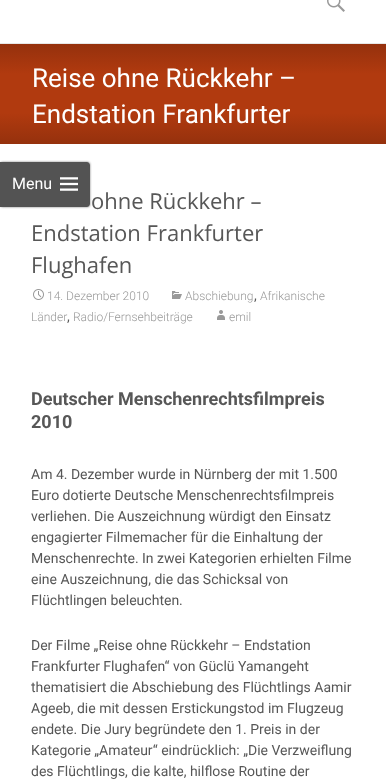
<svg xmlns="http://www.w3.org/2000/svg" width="386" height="784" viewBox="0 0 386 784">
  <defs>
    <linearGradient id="g1" gradientUnits="userSpaceOnUse" x1="193" y1="44" x2="193" y2="144"><stop offset="0" stop-color="rgb(149,49,13)"/><stop offset="0.3" stop-color="rgb(177,58,15)"/><stop offset="0.69" stop-color="rgb(177,58,15)"/><stop offset="1" stop-color="rgb(149,49,13)"/></linearGradient>
    <clipPath id="clip1"><path d="M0 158H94V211H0ZM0 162H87C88.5 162 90 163.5 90 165V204C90 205.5 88.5 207 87 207H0Z" clip-rule="evenodd"/></clipPath>
  </defs>
  <rect width="100%" height="100%" fill="rgb(255,255,255)"/>
  <rect x="0" y="44" width="386" height="100" fill="url(#g1)"/>
  <g font-family="Roboto" font-size="26" fill="rgb(255,255,255)">
    <text>
      <tspan x="32" y="87">Reise ohne Rückkehr –</tspan>
      <tspan x="32" y="123">Endstation Frankfurter</tspan>
    </text>
  </g>
  <rect x="0" y="43" width="386" height="1" fill="rgb(231,231,231)"/>
  <image x="327" y="0" width="18" height="12" href="pic1.png"/>
  <g clip-path="url(#clip1)">
    <rect x="0" y="162" width="90" height="45" rx="3" fill="rgba(50,50,50,0.64)" filter="blur(1px)"/>
  </g>
  <path d="M0 162H87C88.5 162 90 163.5 90 165V204C90 205.5 88.5 207 87 207H0Z" fill="rgba(40,40,40,0.8)"/>
  <text x="12" y="189" font-family="Roboto" font-size="16" fill="rgb(255,255,255)">Menu</text>
  <image x="60" y="177" width="18" height="14" href="pic2.png"/>
  <g font-family="Open Sans" font-size="22" fill="rgb(87,87,87)">
    <text x="91" y="209">ohne Rückkehr –</text>
    <text>
      <tspan x="31" y="241">Endstation Frankfurter</tspan>
      <tspan x="31" y="273">Flughafen</tspan>
    </text>
  </g>
  <image x="172" y="291" width="10" height="8" href="pic3.png"/>
  <text x="185" y="300" font-family="Roboto" font-size="12" font-weight="300" fill="rgb(153,153,153)">Abschiebung</text>
  <text x="254" y="300" font-family="Roboto" font-size="14" fill="rgb(87,87,87)">,</text>
  <g font-family="Roboto" font-size="12" font-weight="300" fill="rgb(153,153,153)">
    <text x="260" y="300">Afrikanische</text>
    <text x="31" y="321">Länder</text>
  </g>
  <text x="67" y="321" font-family="Roboto" font-size="14" fill="rgb(87,87,87)">,</text>
  <text x="73" y="321" font-family="Roboto" font-size="12" font-weight="300" fill="rgb(153,153,153)">Radio/Fernsehbeiträge</text>
  <image x="33" y="289" width="11" height="11" href="pic4.png"/>
  <text x="47" y="300" font-family="Roboto" font-size="12" font-weight="300" fill="rgb(153,153,153)">14. Dezember 2010</text>
  <image x="217" y="310" width="8" height="10" href="pic5.png"/>
  <text x="229" y="321" font-family="Roboto" font-size="12" font-weight="300" fill="rgb(153,153,153)">emil</text>
  <g font-family="Roboto" font-size="18" font-weight="bold" fill="rgb(87,87,87)">
    <text>
      <tspan x="31" y="405">Deutscher Menschenrechtsfilmpreis</tspan>
      <tspan x="31" y="428">2010</tspan>
    </text>
  </g>
  <g font-family="Roboto" font-size="14" fill="rgb(87,87,87)">
    <text>
      <tspan x="31" y="479">Am 4. Dezember wurde in Nürnberg der mit 1.500</tspan>
      <tspan x="31" y="500">Euro dotierte Deutsche Menschenrechtsfilmpreis</tspan>
      <tspan x="31" y="521">verliehen. Die Auszeichnung würdigt den Einsatz</tspan>
      <tspan x="31" y="542">engagierter Filmemacher für die Einhaltung der</tspan>
      <tspan x="31" y="563">Menschenrechte. In zwei Kategorien erhielten Filme</tspan>
      <tspan x="31" y="584">eine Auszeichnung, die das Schicksal von</tspan>
      <tspan x="31" y="605">Flüchtlingen beleuchten.</tspan>
    </text>
    <text>
      <tspan x="31" y="650">Der Filme „Reise ohne Rückkehr – Endstation</tspan>
      <tspan x="31" y="671">Frankfurter Flughafen“ von Güclü Yamangeht</tspan>
      <tspan x="31" y="692">thematisiert die Abschiebung des Flüchtlings Aamir</tspan>
      <tspan x="31" y="713">Ageeb, die mit dessen Erstickungstod im Flugzeug</tspan>
      <tspan x="31" y="734">endete. Die Jury begründete den 1. Preis in der</tspan>
      <tspan x="31" y="755">Kategorie „Amateur“ eindrücklich: „Die Verzweiflung</tspan>
      <tspan x="31" y="776">des Flüchtlings, die kalte, hilflose Routine der</tspan>
    </text>
  </g>
</svg>
